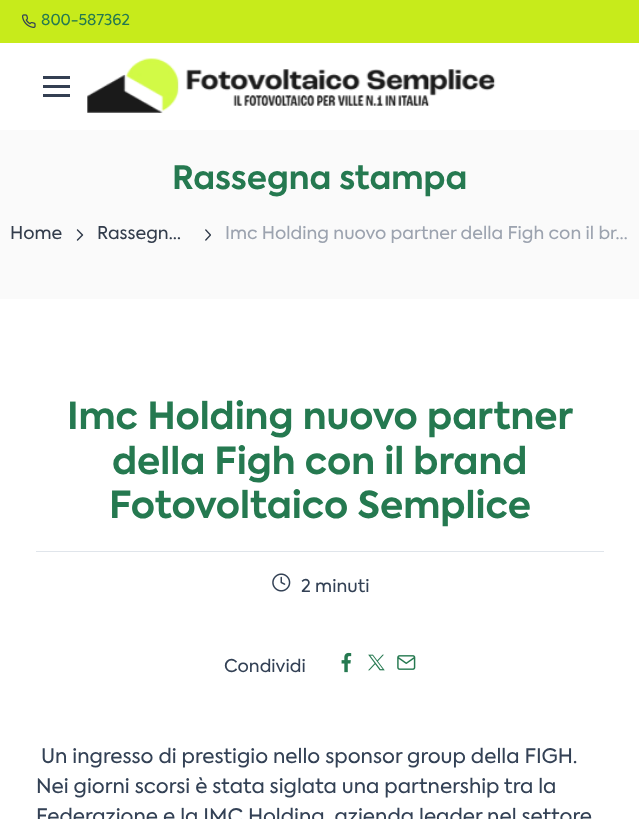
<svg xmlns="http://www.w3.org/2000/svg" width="639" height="819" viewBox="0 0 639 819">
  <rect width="100%" height="100%" fill="rgb(255,255,255)"/>
  <rect x="0" y="0" width="639" height="43" fill="rgb(199,235,27)"/>
  <image x="22" y="14" width="14" height="14" href="pic1.png"/>
  <text x="41" y="25" font-family="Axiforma" font-size="15" fill="rgb(37,121,80)">800-587362</text>
  <rect x="43" y="85" width="27" height="3" fill="rgb(52,63,82)"/>
  <rect x="43" y="76" width="27" height="3" fill="rgb(52,63,82)"/>
  <rect x="43" y="94" width="27" height="3" fill="rgb(52,63,82)"/>
  <image x="87" y="58" width="409" height="55" href="pic2.png"/>
  <rect x="0" y="130" width="639" height="169" fill="rgb(250,250,250)"/>
  <text x="172" y="189" font-family="Axiforma" font-size="32.25" font-weight="bold" fill="rgb(37,121,80)">Rassegna stampa</text>
  <text x="10" y="239" font-family="Axiforma" font-size="17.5" fill="rgb(51,61,76)">Home</text>
  <image x="76" y="229" width="8" height="12" href="pic3.png"/>
  <text x="97" y="239" font-family="Axiforma" font-size="17.5" fill="rgb(51,61,76)">Rassegn…</text>
  <image x="205" y="229" width="6" height="12" href="pic4.png"/>
  <text x="225" y="239" font-family="Axiforma" font-size="17.5" fill="rgb(156,163,175)">Imc Holding nuovo partner della Figh con il br…</text>
  <g font-family="Axiforma" font-size="37.1" font-weight="bold" fill="rgb(37,121,80)">
    <text x="67" y="429">Imc Holding nuovo partner</text>
    <text x="112" y="474">della Figh con il brand</text>
    <text x="109" y="518">Fotovoltaico Semplice</text>
  </g>
  <rect x="36" y="551" width="568" height="1" fill="rgb(224,229,235)"/>
  <image x="272" y="573" width="19" height="19" href="pic5.png"/>
  <g font-family="Axiforma" font-size="17.5" fill="rgb(51,65,85)">
    <text x="301" y="592">2 minuti</text>
    <text x="224" y="672">Condividi</text>
  </g>
  <image x="341" y="652" width="11" height="21" href="pic6.png"/>
  <image x="368" y="654" width="17" height="17" href="pic7.png"/>
  <image x="397" y="655" width="19" height="15" href="pic8.png"/>
  <g font-family="Axiforma" font-size="20" fill="rgb(51,65,85)">
    <text x="41" y="763">Un ingresso di prestigio nello sponsor group della FIGH.</text>
    <text>
      <tspan x="36" y="793">Nei giorni scorsi è stata siglata una partnership tra la</tspan>
      <tspan x="36" y="823">Federazione e la IMC Holding, azienda leader nel settore</tspan>
    </text>
  </g>
</svg>
